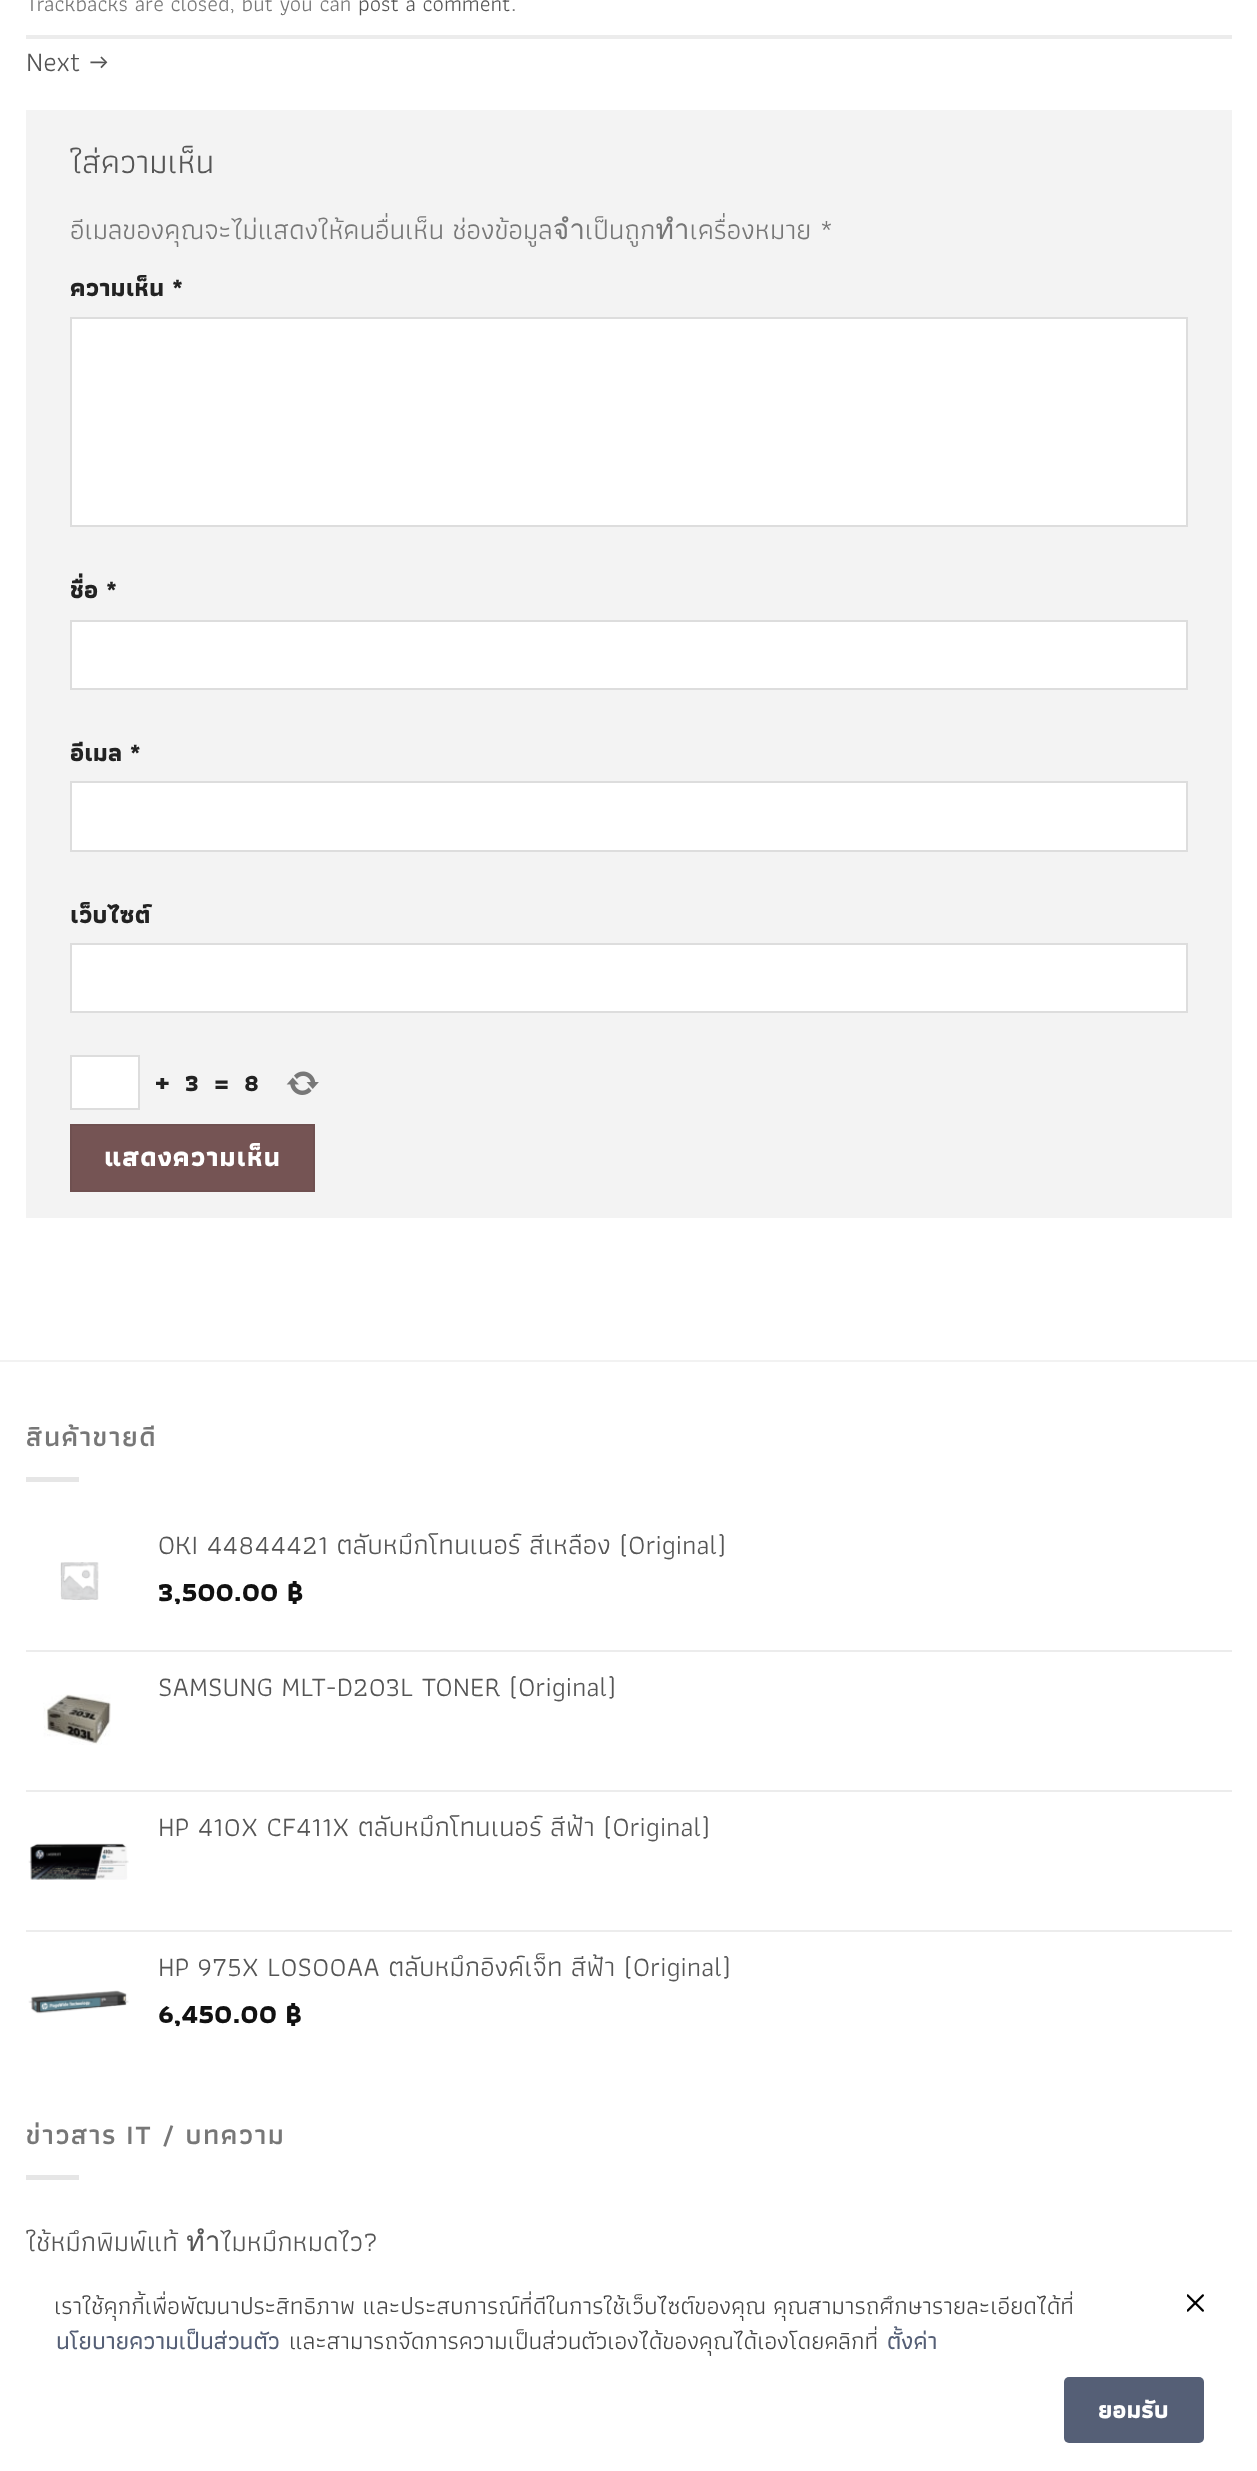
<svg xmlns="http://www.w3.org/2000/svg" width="1257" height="2471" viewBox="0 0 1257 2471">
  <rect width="100%" height="100%" fill="rgb(255,255,255)"/>
  <rect x="26" y="35" width="1206" height="4" fill="rgb(236,236,236)"/>
  <text x="26" y="11" font-family="Athiti" font-size="22.4" fill="rgb(119,119,119)">Trackbacks are closed, but you can</text>
  <text x="358" y="11" font-family="Athiti" font-size="22.4" fill="rgb(85,85,85)">post a comment</text>
  <text x="511" y="11" font-family="Athiti" font-size="22.4" fill="rgb(119,119,119)">.</text>
  <text x="26" y="71" font-family="Athiti" font-size="28" fill="rgb(85,85,85)">Next →</text>
  <rect x="26" y="110" width="1206" height="1108" fill="rgb(243,243,243)"/>
  <text x="70" y="173" font-family="Athiti" font-size="33.5" fill="rgb(85,85,85)">ใส่ความเห็น</text>
  <text x="70" y="239" font-family="Athiti" font-size="28" fill="rgb(119,119,119)">อีเมลของคุณจะไม่แสดงให้คนอื่นเห็น ช่องข้อมูลจำเป็นถูกทำเครื่องหมาย *</text>
  <text x="70" y="296" font-family="Athiti" font-size="25" font-weight="bold" fill="rgb(34,34,34)">ความเห็น *</text>
  <rect x="71" y="318" width="1116" height="208" fill="rgb(255,255,255)" stroke="rgb(221,221,221)" stroke-width="2"/>
  <text x="70" y="598" font-family="Athiti" font-size="25" font-weight="bold" fill="rgb(34,34,34)">ชื่อ *</text>
  <rect x="71" y="621" width="1116" height="68" fill="rgb(255,255,255)" stroke="rgb(221,221,221)" stroke-width="2"/>
  <text x="70" y="761" font-family="Athiti" font-size="25" font-weight="bold" fill="rgb(34,34,34)">อีเมล *</text>
  <rect x="71" y="782" width="1116" height="69" fill="rgb(255,255,255)" stroke="rgb(221,221,221)" stroke-width="2"/>
  <text x="70" y="923" font-family="Athiti" font-size="25" font-weight="bold" fill="rgb(34,34,34)">เว็บไซต์</text>
  <rect x="71" y="944" width="1116" height="68" fill="rgb(255,255,255)" stroke="rgb(221,221,221)" stroke-width="2"/>
  <rect x="71" y="1056" width="68" height="53" fill="rgb(255,255,255)" stroke="rgb(221,221,221)" stroke-width="2"/>
  <g font-family="Athiti" font-size="25" font-weight="bold" fill="rgb(34,34,34)">
    <text x="155" y="1091">+</text>
    <text x="185" y="1091">3</text>
    <text x="214" y="1091">=</text>
    <text x="244" y="1091">8</text>
  </g>
  <image x="286" y="1071" width="33" height="24" href="pic1.png"/>
  <rect x="71" y="1125" width="243" height="66" fill="rgb(117,84,84)" stroke="rgb(111,80,80)" stroke-width="2"/>
  <text x="104" y="1166" font-family="Athiti" font-size="27.25" font-weight="bold" letter-spacing="0.75" fill="rgb(255,255,255)">แสดงความเห็น</text>
  <rect x="0" y="1360" width="1257" height="2" fill="rgb(242,242,242)"/>
  <text x="26" y="1446" font-family="Athiti" font-size="28" font-weight="600" letter-spacing="1.4" fill="rgb(119,119,119)">สินค้าขายดี</text>
  <rect x="26" y="1477" width="53" height="5" fill="rgb(230,230,230)"/>
  <text x="158" y="1554" font-family="Athiti" font-size="28" fill="rgb(85,85,85)">OKI 44844421 ตลับหมึกโทนเนอร์ สีเหลือง (Original)</text>
  <image x="60" y="1562" width="39" height="38" href="pic2.png"/>
  <text x="158" y="1601" font-family="Athiti" font-size="28" font-weight="bold" fill="rgb(17,17,17)">3,500.00 ฿</text>
  <rect x="26" y="1650" width="1206" height="2" fill="rgb(236,236,236)"/>
  <text x="158" y="1696" font-family="Athiti" font-size="28" fill="rgb(85,85,85)">SAMSUNG MLT-D203L TONER (Original)</text>
  <image x="43" y="1694" width="68" height="51" href="pic3.png"/>
  <rect x="26" y="1790" width="1206" height="2" fill="rgb(236,236,236)"/>
  <text x="158" y="1836" font-family="Athiti" font-size="28" fill="rgb(85,85,85)">HP 410X CF411X ตลับหมึกโทนเนอร์ สีฟ้า (Original)</text>
  <image x="28" y="1843" width="101" height="37" href="pic4.png"/>
  <rect x="26" y="1930" width="1206" height="2" fill="rgb(236,236,236)"/>
  <text x="158" y="1976" font-family="Athiti" font-size="28" fill="rgb(85,85,85)">HP 975X L0S00AA ตลับหมึกอิงค์เจ็ท สีฟ้า (Original)</text>
  <image x="28" y="1990" width="101" height="24" href="pic5.png"/>
  <text x="158" y="2023" font-family="Athiti" font-size="28" font-weight="bold" fill="rgb(17,17,17)">6,450.00 ฿</text>
  <text x="26" y="2144" word-spacing="-0.5" font-family="Athiti" font-size="28" font-weight="600" letter-spacing="1.4" fill="rgb(119,119,119)">ข่าวสาร IT / บทความ</text>
  <rect x="26" y="2175" width="53" height="5" fill="rgb(230,230,230)"/>
  <text x="26" y="2251" font-family="Athiti" font-size="28" fill="rgb(85,85,85)">ใช้หมึกพิมพ์แท้ ทำไมหมึกหมดไว?</text>
  <text x="54" y="2314" font-family="Athiti" font-size="24.5" fill="rgb(68,68,68)">เราใช้คุกกี้เพื่อพัฒนาประสิทธิภาพ และประสบการณ์ที่ดีในการใช้เว็บไซต์ของคุณ คุณสามารถศึกษารายละเอียดได้ที่</text>
  <text x="56" y="2349" font-family="Athiti" font-size="24.5" font-weight="500" fill="rgb(85,95,118)">นโยบายความเป็นส่วนตัว</text>
  <text x="289" y="2349" font-family="Athiti" font-size="24.5" fill="rgb(68,68,68)">และสามารถจัดการความเป็นส่วนตัวเองได้ของคุณได้เองโดยคลิกที่</text>
  <text x="887" y="2349" font-family="Athiti" font-size="24.5" font-weight="500" fill="rgb(85,95,118)">ตั้งค่า</text>
  <image x="1187" y="2294" width="17" height="18" href="pic6.png"/>
  <rect x="1064" y="2377" width="140" height="66" rx="5" fill="rgb(85,95,118)"/>
  <text x="1098" y="2418" font-family="Athiti" font-size="24.5" font-weight="bold" fill="rgb(255,255,255)">ยอมรับ</text>
</svg>
